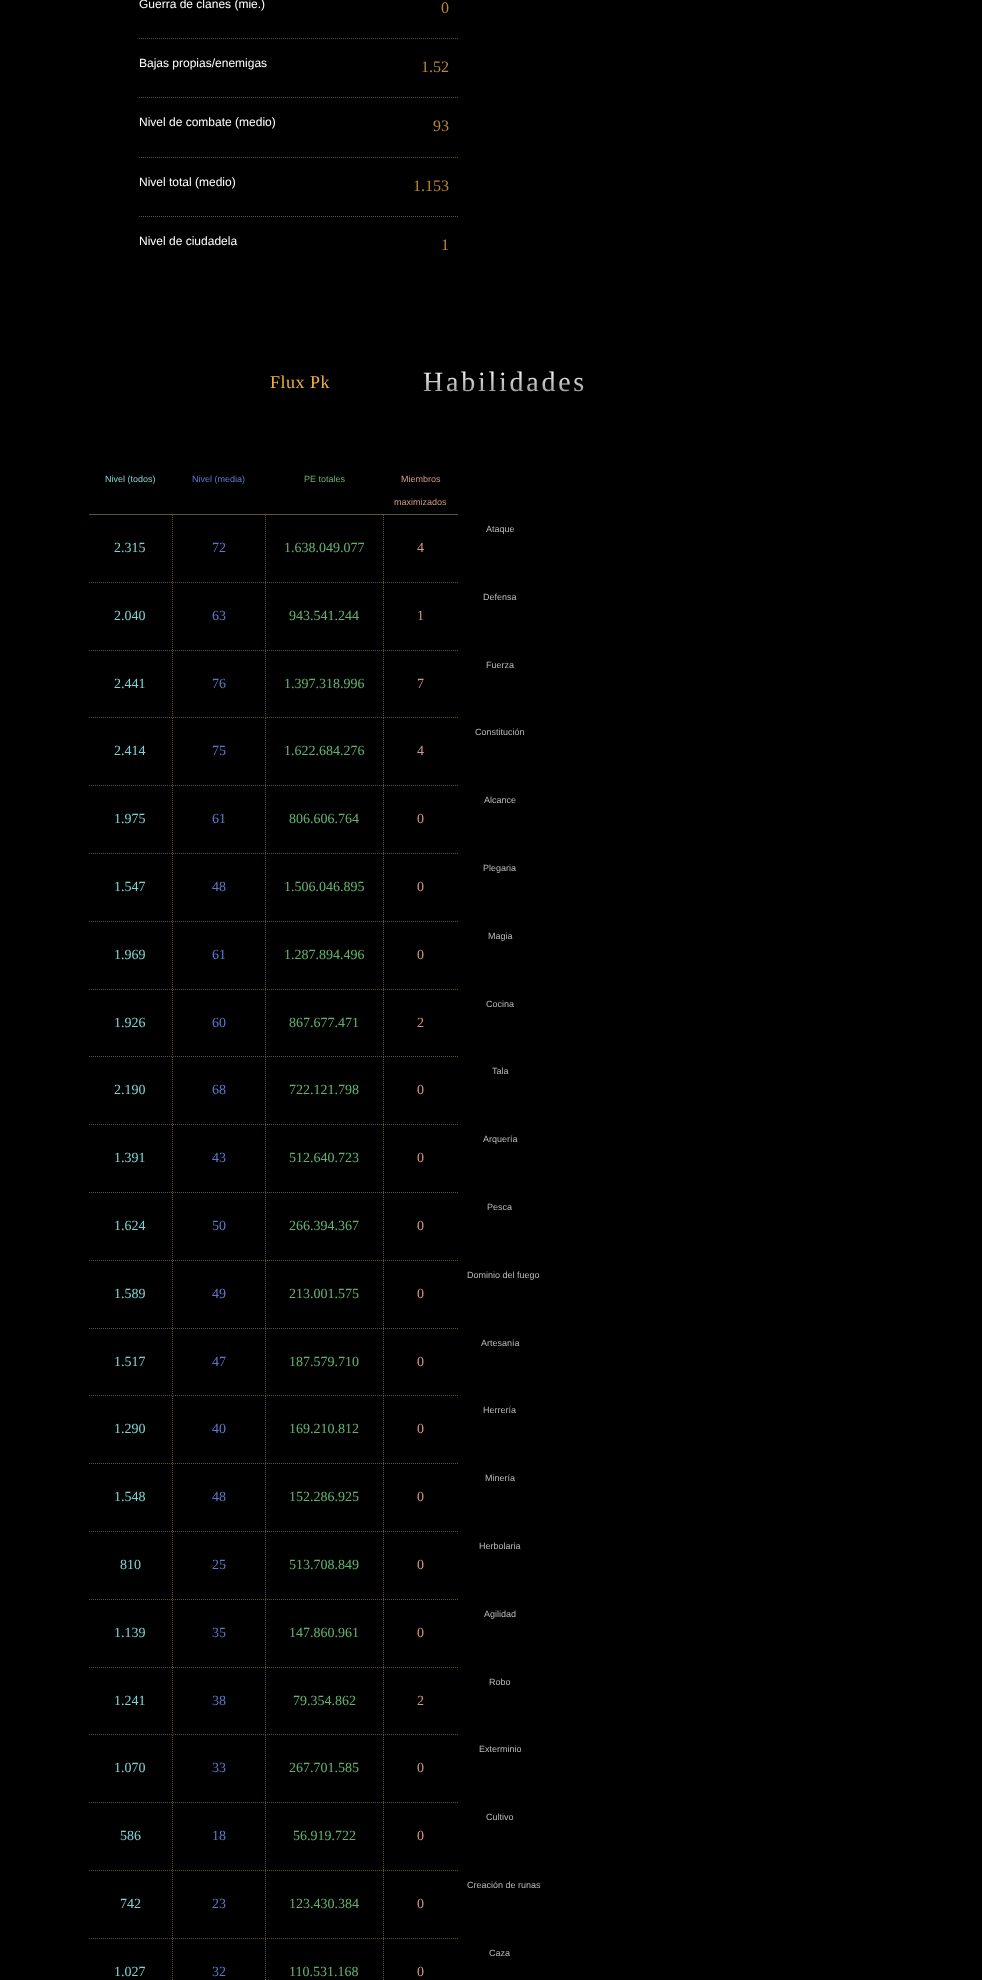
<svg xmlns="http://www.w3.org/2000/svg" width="982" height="1980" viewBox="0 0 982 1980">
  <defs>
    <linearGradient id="g1" gradientUnits="userSpaceOnUse" x1="505" y1="369" x2="505" y2="399"><stop offset="0" stop-color="rgb(255,255,255)"/><stop offset="1" stop-color="rgb(130,130,130)"/></linearGradient>
  </defs>
  <rect width="100%" height="100%" fill="rgb(0,0,0)"/>
  <path d="M139 38.5H459" fill="none" stroke="rgb(99,80,53)" stroke-dasharray="1 1"/>
  <text x="139" y="8" font-family="Liberation Sans" font-size="12" fill="rgb(255,255,255)">Guerra de clanes (mie.)</text>
  <text x="441" y="13" font-family="Liberation Serif" font-size="16" fill="rgb(187,136,50)">0</text>
  <path d="M139 97.5H459" fill="none" stroke="rgb(99,80,53)" stroke-dasharray="1 1"/>
  <text x="139" y="67" font-family="Liberation Sans" font-size="12" fill="rgb(255,255,255)">Bajas propias/enemigas</text>
  <text x="421" y="72" font-family="Liberation Serif" font-size="16" fill="rgb(187,136,50)">1.52</text>
  <path d="M139 157.5H459" fill="none" stroke="rgb(99,80,53)" stroke-dasharray="1 1"/>
  <text x="139" y="126" font-family="Liberation Sans" font-size="12" fill="rgb(255,255,255)">Nivel de combate (medio)</text>
  <text x="433" y="131" font-family="Liberation Serif" font-size="16" fill="rgb(187,136,50)">93</text>
  <path d="M139 216.5H459" fill="none" stroke="rgb(99,80,53)" stroke-dasharray="1 1"/>
  <text x="139" y="186" font-family="Liberation Sans" font-size="12" fill="rgb(255,255,255)">Nivel total (medio)</text>
  <text x="413" y="191" font-family="Liberation Serif" font-size="16" fill="rgb(187,136,50)">1.153</text>
  <text x="139" y="245" font-family="Liberation Sans" font-size="12" fill="rgb(255,255,255)">Nivel de ciudadela</text>
  <text x="441" y="250" font-family="Liberation Serif" font-size="16" fill="rgb(187,136,50)">1</text>
  <text x="270" y="388" font-family="Liberation Serif" font-size="18" letter-spacing="0.5" fill="rgb(243,177,63)">Flux Pk</text>
  <text x="423" y="391" font-family="Liberation Serif" font-size="28" letter-spacing="2.75" fill="url(#g1)">Habilidades</text>
  <rect x="89" y="514" width="369" height="1" fill="rgb(99,80,53)"/>
  <text x="105" y="482" font-family="Liberation Sans" font-size="9" fill="rgb(126,211,212)">Nivel (todos)</text>
  <text x="192" y="482" font-family="Liberation Sans" font-size="9" fill="rgb(91,121,207)">Nivel (media)</text>
  <text x="304" y="482" font-family="Liberation Sans" font-size="9" fill="rgb(99,179,110)">PE totales</text>
  <g font-family="Liberation Sans" font-size="9" fill="rgb(212,152,126)">
    <text x="401" y="482">Miembros</text>
    <text x="394" y="505">maximizados</text>
  </g>
  <text x="486" y="532" font-family="Liberation Sans" font-size="9" fill="rgb(184,184,184)">Ataque</text>
  <path d="M89 582.5H458" fill="none" stroke="rgb(99,80,53)" stroke-dasharray="1 1"/>
  <path d="M172.5 515V582" fill="none" stroke="rgb(99,80,53)" stroke-dasharray="1 1"/>
  <text x="114" y="552" font-family="Liberation Serif" font-size="14" fill="rgb(126,211,212)">2.315</text>
  <path d="M265.5 515V582" fill="none" stroke="rgb(99,80,53)" stroke-dasharray="1 1"/>
  <text x="212" y="552" font-family="Liberation Serif" font-size="14" fill="rgb(91,121,207)">72</text>
  <path d="M383.5 515V582" fill="none" stroke="rgb(99,80,53)" stroke-dasharray="1 1"/>
  <text x="284" y="552" font-family="Liberation Serif" font-size="14" fill="rgb(99,179,110)">1.638.049.077</text>
  <text x="417" y="552" font-family="Liberation Serif" font-size="14" fill="rgb(212,152,126)">4</text>
  <text x="483" y="600" font-family="Liberation Sans" font-size="9" fill="rgb(184,184,184)">Defensa</text>
  <path d="M89 650.5H458" fill="none" stroke="rgb(99,80,53)" stroke-dasharray="1 1"/>
  <path d="M172.5 583V650" fill="none" stroke="rgb(99,80,53)" stroke-dasharray="1 1"/>
  <text x="114" y="620" font-family="Liberation Serif" font-size="14" fill="rgb(126,211,212)">2.040</text>
  <path d="M265.5 583V650" fill="none" stroke="rgb(99,80,53)" stroke-dasharray="1 1"/>
  <text x="212" y="620" font-family="Liberation Serif" font-size="14" fill="rgb(91,121,207)">63</text>
  <path d="M383.5 583V650" fill="none" stroke="rgb(99,80,53)" stroke-dasharray="1 1"/>
  <text x="289" y="620" font-family="Liberation Serif" font-size="14" fill="rgb(99,179,110)">943.541.244</text>
  <text x="417" y="620" font-family="Liberation Serif" font-size="14" fill="rgb(212,152,126)">1</text>
  <text x="486" y="668" font-family="Liberation Sans" font-size="9" fill="rgb(184,184,184)">Fuerza</text>
  <path d="M89 717.5H458" fill="none" stroke="rgb(99,80,53)" stroke-dasharray="1 1"/>
  <path d="M172.5 651V717" fill="none" stroke="rgb(99,80,53)" stroke-dasharray="1 1"/>
  <text x="114" y="688" font-family="Liberation Serif" font-size="14" fill="rgb(126,211,212)">2.441</text>
  <path d="M265.5 651V717" fill="none" stroke="rgb(99,80,53)" stroke-dasharray="1 1"/>
  <text x="212" y="688" font-family="Liberation Serif" font-size="14" fill="rgb(91,121,207)">76</text>
  <path d="M383.5 651V717" fill="none" stroke="rgb(99,80,53)" stroke-dasharray="1 1"/>
  <text x="284" y="688" font-family="Liberation Serif" font-size="14" fill="rgb(99,179,110)">1.397.318.996</text>
  <text x="417" y="688" font-family="Liberation Serif" font-size="14" fill="rgb(212,152,126)">7</text>
  <text x="475" y="735" font-family="Liberation Sans" font-size="9" fill="rgb(184,184,184)">Constitución</text>
  <path d="M89 785.5H458" fill="none" stroke="rgb(99,80,53)" stroke-dasharray="1 1"/>
  <path d="M172.5 718V785" fill="none" stroke="rgb(99,80,53)" stroke-dasharray="1 1"/>
  <text x="114" y="755" font-family="Liberation Serif" font-size="14" fill="rgb(126,211,212)">2.414</text>
  <path d="M265.5 718V785" fill="none" stroke="rgb(99,80,53)" stroke-dasharray="1 1"/>
  <text x="212" y="755" font-family="Liberation Serif" font-size="14" fill="rgb(91,121,207)">75</text>
  <path d="M383.5 718V785" fill="none" stroke="rgb(99,80,53)" stroke-dasharray="1 1"/>
  <text x="284" y="755" font-family="Liberation Serif" font-size="14" fill="rgb(99,179,110)">1.622.684.276</text>
  <text x="417" y="755" font-family="Liberation Serif" font-size="14" fill="rgb(212,152,126)">4</text>
  <text x="484" y="803" font-family="Liberation Sans" font-size="9" fill="rgb(184,184,184)">Alcance</text>
  <path d="M89 853.5H458" fill="none" stroke="rgb(99,80,53)" stroke-dasharray="1 1"/>
  <path d="M172.5 786V853" fill="none" stroke="rgb(99,80,53)" stroke-dasharray="1 1"/>
  <text x="114" y="823" font-family="Liberation Serif" font-size="14" fill="rgb(126,211,212)">1.975</text>
  <path d="M265.5 786V853" fill="none" stroke="rgb(99,80,53)" stroke-dasharray="1 1"/>
  <text x="212" y="823" font-family="Liberation Serif" font-size="14" fill="rgb(91,121,207)">61</text>
  <path d="M383.5 786V853" fill="none" stroke="rgb(99,80,53)" stroke-dasharray="1 1"/>
  <text x="289" y="823" font-family="Liberation Serif" font-size="14" fill="rgb(99,179,110)">806.606.764</text>
  <text x="417" y="823" font-family="Liberation Serif" font-size="14" fill="rgb(212,152,126)">0</text>
  <text x="483" y="871" font-family="Liberation Sans" font-size="9" fill="rgb(184,184,184)">Plegaria</text>
  <path d="M89 921.5H458" fill="none" stroke="rgb(99,80,53)" stroke-dasharray="1 1"/>
  <path d="M172.5 854V921" fill="none" stroke="rgb(99,80,53)" stroke-dasharray="1 1"/>
  <text x="114" y="891" font-family="Liberation Serif" font-size="14" fill="rgb(126,211,212)">1.547</text>
  <path d="M265.5 854V921" fill="none" stroke="rgb(99,80,53)" stroke-dasharray="1 1"/>
  <text x="212" y="891" font-family="Liberation Serif" font-size="14" fill="rgb(91,121,207)">48</text>
  <path d="M383.5 854V921" fill="none" stroke="rgb(99,80,53)" stroke-dasharray="1 1"/>
  <text x="284" y="891" font-family="Liberation Serif" font-size="14" fill="rgb(99,179,110)">1.506.046.895</text>
  <text x="417" y="891" font-family="Liberation Serif" font-size="14" fill="rgb(212,152,126)">0</text>
  <text x="488" y="939" font-family="Liberation Sans" font-size="9" fill="rgb(184,184,184)">Magia</text>
  <path d="M89 989.5H458" fill="none" stroke="rgb(99,80,53)" stroke-dasharray="1 1"/>
  <path d="M172.5 922V989" fill="none" stroke="rgb(99,80,53)" stroke-dasharray="1 1"/>
  <text x="114" y="959" font-family="Liberation Serif" font-size="14" fill="rgb(126,211,212)">1.969</text>
  <path d="M265.5 922V989" fill="none" stroke="rgb(99,80,53)" stroke-dasharray="1 1"/>
  <text x="212" y="959" font-family="Liberation Serif" font-size="14" fill="rgb(91,121,207)">61</text>
  <path d="M383.5 922V989" fill="none" stroke="rgb(99,80,53)" stroke-dasharray="1 1"/>
  <text x="284" y="959" font-family="Liberation Serif" font-size="14" fill="rgb(99,179,110)">1.287.894.496</text>
  <text x="417" y="959" font-family="Liberation Serif" font-size="14" fill="rgb(212,152,126)">0</text>
  <text x="486" y="1007" font-family="Liberation Sans" font-size="9" fill="rgb(184,184,184)">Cocina</text>
  <path d="M89 1056.5H458" fill="none" stroke="rgb(99,80,53)" stroke-dasharray="1 1"/>
  <path d="M172.5 990V1056" fill="none" stroke="rgb(99,80,53)" stroke-dasharray="1 1"/>
  <text x="114" y="1027" font-family="Liberation Serif" font-size="14" fill="rgb(126,211,212)">1.926</text>
  <path d="M265.5 990V1056" fill="none" stroke="rgb(99,80,53)" stroke-dasharray="1 1"/>
  <text x="212" y="1027" font-family="Liberation Serif" font-size="14" fill="rgb(91,121,207)">60</text>
  <path d="M383.5 990V1056" fill="none" stroke="rgb(99,80,53)" stroke-dasharray="1 1"/>
  <text x="289" y="1027" font-family="Liberation Serif" font-size="14" fill="rgb(99,179,110)">867.677.471</text>
  <text x="417" y="1027" font-family="Liberation Serif" font-size="14" fill="rgb(212,152,126)">2</text>
  <text x="492" y="1074" font-family="Liberation Sans" font-size="9" fill="rgb(184,184,184)">Tala</text>
  <path d="M89 1124.5H458" fill="none" stroke="rgb(99,80,53)" stroke-dasharray="1 1"/>
  <path d="M172.5 1057V1124" fill="none" stroke="rgb(99,80,53)" stroke-dasharray="1 1"/>
  <text x="114" y="1094" font-family="Liberation Serif" font-size="14" fill="rgb(126,211,212)">2.190</text>
  <path d="M265.5 1057V1124" fill="none" stroke="rgb(99,80,53)" stroke-dasharray="1 1"/>
  <text x="212" y="1094" font-family="Liberation Serif" font-size="14" fill="rgb(91,121,207)">68</text>
  <path d="M383.5 1057V1124" fill="none" stroke="rgb(99,80,53)" stroke-dasharray="1 1"/>
  <text x="289" y="1094" font-family="Liberation Serif" font-size="14" fill="rgb(99,179,110)">722.121.798</text>
  <text x="417" y="1094" font-family="Liberation Serif" font-size="14" fill="rgb(212,152,126)">0</text>
  <text x="483" y="1142" font-family="Liberation Sans" font-size="9" fill="rgb(184,184,184)">Arquería</text>
  <path d="M89 1192.5H458" fill="none" stroke="rgb(99,80,53)" stroke-dasharray="1 1"/>
  <path d="M172.5 1125V1192" fill="none" stroke="rgb(99,80,53)" stroke-dasharray="1 1"/>
  <text x="114" y="1162" font-family="Liberation Serif" font-size="14" fill="rgb(126,211,212)">1.391</text>
  <path d="M265.5 1125V1192" fill="none" stroke="rgb(99,80,53)" stroke-dasharray="1 1"/>
  <text x="212" y="1162" font-family="Liberation Serif" font-size="14" fill="rgb(91,121,207)">43</text>
  <path d="M383.5 1125V1192" fill="none" stroke="rgb(99,80,53)" stroke-dasharray="1 1"/>
  <text x="289" y="1162" font-family="Liberation Serif" font-size="14" fill="rgb(99,179,110)">512.640.723</text>
  <text x="417" y="1162" font-family="Liberation Serif" font-size="14" fill="rgb(212,152,126)">0</text>
  <text x="487" y="1210" font-family="Liberation Sans" font-size="9" fill="rgb(184,184,184)">Pesca</text>
  <path d="M89 1260.5H458" fill="none" stroke="rgb(99,80,53)" stroke-dasharray="1 1"/>
  <path d="M172.5 1193V1260" fill="none" stroke="rgb(99,80,53)" stroke-dasharray="1 1"/>
  <text x="114" y="1230" font-family="Liberation Serif" font-size="14" fill="rgb(126,211,212)">1.624</text>
  <path d="M265.5 1193V1260" fill="none" stroke="rgb(99,80,53)" stroke-dasharray="1 1"/>
  <text x="212" y="1230" font-family="Liberation Serif" font-size="14" fill="rgb(91,121,207)">50</text>
  <path d="M383.5 1193V1260" fill="none" stroke="rgb(99,80,53)" stroke-dasharray="1 1"/>
  <text x="289" y="1230" font-family="Liberation Serif" font-size="14" fill="rgb(99,179,110)">266.394.367</text>
  <text x="417" y="1230" font-family="Liberation Serif" font-size="14" fill="rgb(212,152,126)">0</text>
  <text x="467" y="1278" font-family="Liberation Sans" font-size="9" fill="rgb(184,184,184)">Dominio del fuego</text>
  <path d="M89 1328.5H458" fill="none" stroke="rgb(99,80,53)" stroke-dasharray="1 1"/>
  <path d="M172.5 1261V1328" fill="none" stroke="rgb(99,80,53)" stroke-dasharray="1 1"/>
  <text x="114" y="1298" font-family="Liberation Serif" font-size="14" fill="rgb(126,211,212)">1.589</text>
  <path d="M265.5 1261V1328" fill="none" stroke="rgb(99,80,53)" stroke-dasharray="1 1"/>
  <text x="212" y="1298" font-family="Liberation Serif" font-size="14" fill="rgb(91,121,207)">49</text>
  <path d="M383.5 1261V1328" fill="none" stroke="rgb(99,80,53)" stroke-dasharray="1 1"/>
  <text x="289" y="1298" font-family="Liberation Serif" font-size="14" fill="rgb(99,179,110)">213.001.575</text>
  <text x="417" y="1298" font-family="Liberation Serif" font-size="14" fill="rgb(212,152,126)">0</text>
  <text x="481" y="1346" font-family="Liberation Sans" font-size="9" fill="rgb(184,184,184)">Artesanía</text>
  <path d="M89 1395.5H458" fill="none" stroke="rgb(99,80,53)" stroke-dasharray="1 1"/>
  <path d="M172.5 1329V1395" fill="none" stroke="rgb(99,80,53)" stroke-dasharray="1 1"/>
  <text x="114" y="1366" font-family="Liberation Serif" font-size="14" fill="rgb(126,211,212)">1.517</text>
  <path d="M265.5 1329V1395" fill="none" stroke="rgb(99,80,53)" stroke-dasharray="1 1"/>
  <text x="212" y="1366" font-family="Liberation Serif" font-size="14" fill="rgb(91,121,207)">47</text>
  <path d="M383.5 1329V1395" fill="none" stroke="rgb(99,80,53)" stroke-dasharray="1 1"/>
  <text x="289" y="1366" font-family="Liberation Serif" font-size="14" fill="rgb(99,179,110)">187.579.710</text>
  <text x="417" y="1366" font-family="Liberation Serif" font-size="14" fill="rgb(212,152,126)">0</text>
  <text x="483" y="1413" font-family="Liberation Sans" font-size="9" fill="rgb(184,184,184)">Herrería</text>
  <path d="M89 1463.5H458" fill="none" stroke="rgb(99,80,53)" stroke-dasharray="1 1"/>
  <path d="M172.5 1396V1463" fill="none" stroke="rgb(99,80,53)" stroke-dasharray="1 1"/>
  <text x="114" y="1433" font-family="Liberation Serif" font-size="14" fill="rgb(126,211,212)">1.290</text>
  <path d="M265.5 1396V1463" fill="none" stroke="rgb(99,80,53)" stroke-dasharray="1 1"/>
  <text x="212" y="1433" font-family="Liberation Serif" font-size="14" fill="rgb(91,121,207)">40</text>
  <path d="M383.5 1396V1463" fill="none" stroke="rgb(99,80,53)" stroke-dasharray="1 1"/>
  <text x="289" y="1433" font-family="Liberation Serif" font-size="14" fill="rgb(99,179,110)">169.210.812</text>
  <text x="417" y="1433" font-family="Liberation Serif" font-size="14" fill="rgb(212,152,126)">0</text>
  <text x="485" y="1481" font-family="Liberation Sans" font-size="9" fill="rgb(184,184,184)">Minería</text>
  <path d="M89 1531.5H458" fill="none" stroke="rgb(99,80,53)" stroke-dasharray="1 1"/>
  <path d="M172.5 1464V1531" fill="none" stroke="rgb(99,80,53)" stroke-dasharray="1 1"/>
  <text x="114" y="1501" font-family="Liberation Serif" font-size="14" fill="rgb(126,211,212)">1.548</text>
  <path d="M265.5 1464V1531" fill="none" stroke="rgb(99,80,53)" stroke-dasharray="1 1"/>
  <text x="212" y="1501" font-family="Liberation Serif" font-size="14" fill="rgb(91,121,207)">48</text>
  <path d="M383.5 1464V1531" fill="none" stroke="rgb(99,80,53)" stroke-dasharray="1 1"/>
  <text x="289" y="1501" font-family="Liberation Serif" font-size="14" fill="rgb(99,179,110)">152.286.925</text>
  <text x="417" y="1501" font-family="Liberation Serif" font-size="14" fill="rgb(212,152,126)">0</text>
  <text x="479" y="1549" font-family="Liberation Sans" font-size="9" fill="rgb(184,184,184)">Herbolaria</text>
  <path d="M89 1599.5H458" fill="none" stroke="rgb(99,80,53)" stroke-dasharray="1 1"/>
  <path d="M172.5 1532V1599" fill="none" stroke="rgb(99,80,53)" stroke-dasharray="1 1"/>
  <text x="120" y="1569" font-family="Liberation Serif" font-size="14" fill="rgb(126,211,212)">810</text>
  <path d="M265.5 1532V1599" fill="none" stroke="rgb(99,80,53)" stroke-dasharray="1 1"/>
  <text x="212" y="1569" font-family="Liberation Serif" font-size="14" fill="rgb(91,121,207)">25</text>
  <path d="M383.5 1532V1599" fill="none" stroke="rgb(99,80,53)" stroke-dasharray="1 1"/>
  <text x="289" y="1569" font-family="Liberation Serif" font-size="14" fill="rgb(99,179,110)">513.708.849</text>
  <text x="417" y="1569" font-family="Liberation Serif" font-size="14" fill="rgb(212,152,126)">0</text>
  <text x="484" y="1617" font-family="Liberation Sans" font-size="9" fill="rgb(184,184,184)">Agilidad</text>
  <path d="M89 1667.5H458" fill="none" stroke="rgb(99,80,53)" stroke-dasharray="1 1"/>
  <path d="M172.5 1600V1667" fill="none" stroke="rgb(99,80,53)" stroke-dasharray="1 1"/>
  <text x="114" y="1637" font-family="Liberation Serif" font-size="14" fill="rgb(126,211,212)">1.139</text>
  <path d="M265.5 1600V1667" fill="none" stroke="rgb(99,80,53)" stroke-dasharray="1 1"/>
  <text x="212" y="1637" font-family="Liberation Serif" font-size="14" fill="rgb(91,121,207)">35</text>
  <path d="M383.5 1600V1667" fill="none" stroke="rgb(99,80,53)" stroke-dasharray="1 1"/>
  <text x="289" y="1637" font-family="Liberation Serif" font-size="14" fill="rgb(99,179,110)">147.860.961</text>
  <text x="417" y="1637" font-family="Liberation Serif" font-size="14" fill="rgb(212,152,126)">0</text>
  <text x="489" y="1685" font-family="Liberation Sans" font-size="9" fill="rgb(184,184,184)">Robo</text>
  <path d="M89 1734.5H458" fill="none" stroke="rgb(99,80,53)" stroke-dasharray="1 1"/>
  <path d="M172.5 1668V1734" fill="none" stroke="rgb(99,80,53)" stroke-dasharray="1 1"/>
  <text x="114" y="1705" font-family="Liberation Serif" font-size="14" fill="rgb(126,211,212)">1.241</text>
  <path d="M265.5 1668V1734" fill="none" stroke="rgb(99,80,53)" stroke-dasharray="1 1"/>
  <text x="212" y="1705" font-family="Liberation Serif" font-size="14" fill="rgb(91,121,207)">38</text>
  <path d="M383.5 1668V1734" fill="none" stroke="rgb(99,80,53)" stroke-dasharray="1 1"/>
  <text x="293" y="1705" font-family="Liberation Serif" font-size="14" fill="rgb(99,179,110)">79.354.862</text>
  <text x="417" y="1705" font-family="Liberation Serif" font-size="14" fill="rgb(212,152,126)">2</text>
  <text x="479" y="1752" font-family="Liberation Sans" font-size="9" fill="rgb(184,184,184)">Exterminio</text>
  <path d="M89 1802.5H458" fill="none" stroke="rgb(99,80,53)" stroke-dasharray="1 1"/>
  <path d="M172.5 1735V1802" fill="none" stroke="rgb(99,80,53)" stroke-dasharray="1 1"/>
  <text x="114" y="1772" font-family="Liberation Serif" font-size="14" fill="rgb(126,211,212)">1.070</text>
  <path d="M265.5 1735V1802" fill="none" stroke="rgb(99,80,53)" stroke-dasharray="1 1"/>
  <text x="212" y="1772" font-family="Liberation Serif" font-size="14" fill="rgb(91,121,207)">33</text>
  <path d="M383.5 1735V1802" fill="none" stroke="rgb(99,80,53)" stroke-dasharray="1 1"/>
  <text x="289" y="1772" font-family="Liberation Serif" font-size="14" fill="rgb(99,179,110)">267.701.585</text>
  <text x="417" y="1772" font-family="Liberation Serif" font-size="14" fill="rgb(212,152,126)">0</text>
  <text x="486" y="1820" font-family="Liberation Sans" font-size="9" fill="rgb(184,184,184)">Cultivo</text>
  <path d="M89 1870.5H458" fill="none" stroke="rgb(99,80,53)" stroke-dasharray="1 1"/>
  <path d="M172.5 1803V1870" fill="none" stroke="rgb(99,80,53)" stroke-dasharray="1 1"/>
  <text x="120" y="1840" font-family="Liberation Serif" font-size="14" fill="rgb(126,211,212)">586</text>
  <path d="M265.5 1803V1870" fill="none" stroke="rgb(99,80,53)" stroke-dasharray="1 1"/>
  <text x="212" y="1840" font-family="Liberation Serif" font-size="14" fill="rgb(91,121,207)">18</text>
  <path d="M383.5 1803V1870" fill="none" stroke="rgb(99,80,53)" stroke-dasharray="1 1"/>
  <text x="293" y="1840" font-family="Liberation Serif" font-size="14" fill="rgb(99,179,110)">56.919.722</text>
  <text x="417" y="1840" font-family="Liberation Serif" font-size="14" fill="rgb(212,152,126)">0</text>
  <text x="467" y="1888" font-family="Liberation Sans" font-size="9" fill="rgb(184,184,184)">Creación de runas</text>
  <path d="M89 1938.5H458" fill="none" stroke="rgb(99,80,53)" stroke-dasharray="1 1"/>
  <path d="M172.5 1871V1938" fill="none" stroke="rgb(99,80,53)" stroke-dasharray="1 1"/>
  <text x="120" y="1908" font-family="Liberation Serif" font-size="14" fill="rgb(126,211,212)">742</text>
  <path d="M265.5 1871V1938" fill="none" stroke="rgb(99,80,53)" stroke-dasharray="1 1"/>
  <text x="212" y="1908" font-family="Liberation Serif" font-size="14" fill="rgb(91,121,207)">23</text>
  <path d="M383.5 1871V1938" fill="none" stroke="rgb(99,80,53)" stroke-dasharray="1 1"/>
  <text x="289" y="1908" font-family="Liberation Serif" font-size="14" fill="rgb(99,179,110)">123.430.384</text>
  <text x="417" y="1908" font-family="Liberation Serif" font-size="14" fill="rgb(212,152,126)">0</text>
  <text x="489" y="1956" font-family="Liberation Sans" font-size="9" fill="rgb(184,184,184)">Caza</text>
  <path d="M172.5 1939V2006" fill="none" stroke="rgb(99,80,53)" stroke-dasharray="1 1"/>
  <text x="114" y="1976" font-family="Liberation Serif" font-size="14" fill="rgb(126,211,212)">1.027</text>
  <path d="M265.5 1939V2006" fill="none" stroke="rgb(99,80,53)" stroke-dasharray="1 1"/>
  <text x="212" y="1976" font-family="Liberation Serif" font-size="14" fill="rgb(91,121,207)">32</text>
  <path d="M383.5 1939V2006" fill="none" stroke="rgb(99,80,53)" stroke-dasharray="1 1"/>
  <text x="289" y="1976" font-family="Liberation Serif" font-size="14" fill="rgb(99,179,110)">110.531.168</text>
  <text x="417" y="1976" font-family="Liberation Serif" font-size="14" fill="rgb(212,152,126)">0</text>
</svg>
